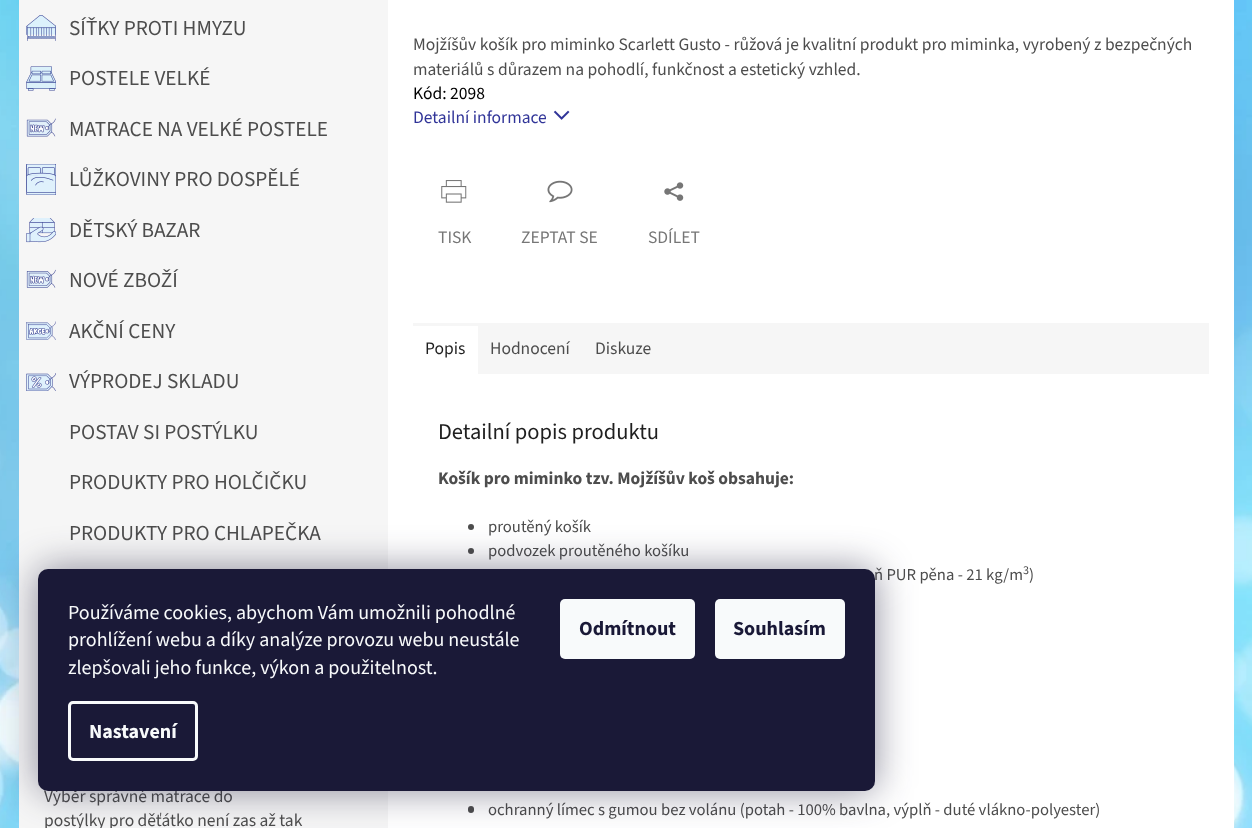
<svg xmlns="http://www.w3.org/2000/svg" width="1252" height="828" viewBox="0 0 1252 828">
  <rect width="100%" height="100%" fill="rgb(255,255,255)"/>
  <image x="0" y="0" width="1252" height="828" href="pic1.png"/>
  <rect x="388" y="0" width="846" height="828" fill="rgb(255,255,255)"/>
  <rect x="19" y="0" width="369" height="828" fill="rgb(246,246,246)"/>
  <image x="26" y="15" width="30" height="26" href="pic2.png"/>
  <text x="69" y="35" font-family="'Source Sans 3'" font-size="21.25" fill="rgb(77,77,77)">SÍŤKY PROTI HMYZU</text>
  <image x="26" y="66" width="30" height="25" href="pic3.png"/>
  <text x="69" y="85" font-family="'Source Sans 3'" font-size="21.25" fill="rgb(77,77,77)">POSTELE VELKÉ</text>
  <image x="26" y="118" width="30" height="19" href="pic4.png"/>
  <text x="69" y="136" font-family="'Source Sans 3'" font-size="21.25" fill="rgb(77,77,77)">MATRACE NA VELKÉ POSTELE</text>
  <image x="26" y="164" width="30" height="31" href="pic5.png"/>
  <text x="69" y="186" font-family="'Source Sans 3'" font-size="21.25" fill="rgb(77,77,77)">LŮŽKOVINY PRO DOSPĚLÉ</text>
  <image x="26" y="218" width="30" height="25" href="pic6.png"/>
  <text x="69" y="237" font-family="'Source Sans 3'" font-size="21.25" fill="rgb(77,77,77)">DĚTSKÝ BAZAR</text>
  <image x="26" y="269" width="30" height="19" href="pic7.png"/>
  <text x="69" y="287" font-family="'Source Sans 3'" font-size="21.25" fill="rgb(77,77,77)">NOVÉ ZBOŽÍ</text>
  <image x="26" y="321" width="30" height="19" href="pic8.png"/>
  <text x="69" y="338" font-family="'Source Sans 3'" font-size="21.25" fill="rgb(77,77,77)">AKČNÍ CENY</text>
  <image x="26" y="373" width="30" height="18" href="pic9.png"/>
  <g font-family="'Source Sans 3'" font-size="21.25" fill="rgb(77,77,77)">
    <text x="69" y="388">VÝPRODEJ SKLADU</text>
    <text x="69" y="439">POSTAV SI POSTÝLKU</text>
    <text x="69" y="489">PRODUKTY PRO HOLČIČKU</text>
    <text x="69" y="540">PRODUKTY PRO CHLAPEČKA</text>
  </g>
  <g font-family="'Source Sans 3'" font-size="17.5" fill="rgb(77,77,77)">
    <text>
      <tspan x="44" y="802">Výběr správné matrace do</tspan>
      <tspan x="44" y="826">postýlky pro děťátko není zas až tak</tspan>
    </text>
    <text>
      <tspan x="413" y="50">Mojžíšův košík pro miminko Scarlett Gusto - růžová je kvalitní produkt pro miminka, vyrobený z bezpečných</tspan>
      <tspan x="413" y="75">materiálů s důrazem na pohodlí, funkčnost a estetický vzhled.</tspan>
    </text>
  </g>
  <text x="413" y="99" font-family="'Source Sans 3'" font-size="17.5" fill="rgb(0,0,0)">Kód: 2098</text>
  <text x="413" y="123" font-family="'Source Sans 3'" font-size="17.5" fill="rgb(48,52,152)">Detailní informace</text>
  <image x="553" y="110" width="17" height="10" href="pic10.png"/>
  <image x="441" y="180" width="26" height="23" href="pic11.png"/>
  <text x="438" y="243" font-family="'Source Sans 3'" font-size="17.5" fill="rgb(118,118,118)">TISK</text>
  <image x="547" y="180" width="26" height="23" href="pic12.png"/>
  <text x="521" y="243" font-family="'Source Sans 3'" font-size="17.5" fill="rgb(118,118,118)">ZEPTAT SE</text>
  <image x="664" y="182" width="20" height="19" href="pic13.png"/>
  <text x="648" y="243" font-family="'Source Sans 3'" font-size="17.5" fill="rgb(118,118,118)">SDÍLET</text>
  <rect x="478" y="323" width="731" height="51" fill="rgb(246,246,246)"/>
  <rect x="413" y="323" width="65" height="3" fill="rgb(246,246,246)"/>
  <text x="425" y="354" font-family="'Source Sans 3'" font-size="17.5" fill="rgb(31,31,31)">Popis</text>
  <g font-family="'Source Sans 3'" font-size="17.5" fill="rgb(77,77,77)">
    <text x="490" y="354">Hodnocení</text>
    <text x="595" y="354">Diskuze</text>
  </g>
  <text x="438" y="439" font-family="'Source Sans 3'" font-size="22.5" fill="rgb(31,31,31)">Detailní popis produktu</text>
  <text x="438" y="484" font-family="'Source Sans 3'" font-size="17.5" font-weight="bold" fill="rgb(77,77,77)">Košík pro miminko tzv. Mojžíšův koš obsahuje:</text>
  <circle cx="471" cy="527" r="3" fill="rgb(77,77,77)"/>
  <text x="488" y="532" font-family="'Source Sans 3'" font-size="16.65" fill="rgb(77,77,77)">proutěný košík</text>
  <circle cx="471" cy="551" r="3" fill="rgb(77,77,77)"/>
  <g font-family="'Source Sans 3'" font-size="16.65" fill="rgb(77,77,77)">
    <text x="488" y="556">podvozek proutěného košíku</text>
    <text x="874" y="580">ň PUR pěna - 21 kg/m</text>
  </g>
  <text x="1023" y="574" font-family="'Source Sans 3'" font-size="12" fill="rgb(77,77,77)">3</text>
  <text x="1029" y="580" font-family="'Source Sans 3'" font-size="16.65" fill="rgb(77,77,77)">)</text>
  <rect x="468" y="806" width="6" height="7" rx="3" fill="rgb(77,77,77)"/>
  <text x="488" y="815" font-family="'Source Sans 3'" font-size="16.65" fill="rgb(77,77,77)">ochranný límec s gumou bez volánu (potah - 100% bavlna, výplň - duté vlákno-polyester)</text>
  <rect x="38" y="569" width="837" height="222" rx="10" fill="rgba(27,25,57,0.5)" filter="blur(19px)"/>
  <rect x="38" y="569" width="837" height="222" rx="10" fill="rgb(26,25,55)"/>
  <g font-family="'Source Sans 3'" font-size="20" fill="rgb(248,250,251)">
    <text>
      <tspan x="68" y="619">Používáme cookies, abychom Vám umožnili pohodlné</tspan>
      <tspan x="68" y="646">prohlížení webu a díky analýze provozu webu neustále</tspan>
      <tspan x="68" y="674">zlepšovali jeho funkce, výkon a použitelnost.</tspan>
    </text>
  </g>
  <rect x="69.5" y="702.5" width="127" height="57" rx="3.5" fill="none" stroke="rgb(248,250,251)" stroke-width="3"/>
  <text x="89" y="738" font-family="'Source Sans 3'" font-size="20" font-weight="bold" fill="rgb(248,250,251)">Nastavení</text>
  <rect x="560" y="599" width="135" height="60" rx="5" fill="rgb(248,250,251)"/>
  <text x="579" y="635" font-family="'Source Sans 3'" font-size="20" font-weight="bold" fill="rgb(26,25,55)">Odmítnout</text>
  <rect x="715" y="599" width="130" height="60" rx="5" fill="rgb(248,250,251)"/>
  <text x="733" y="635" font-family="'Source Sans 3'" font-size="20" font-weight="bold" fill="rgb(26,25,55)">Souhlasím</text>
</svg>
